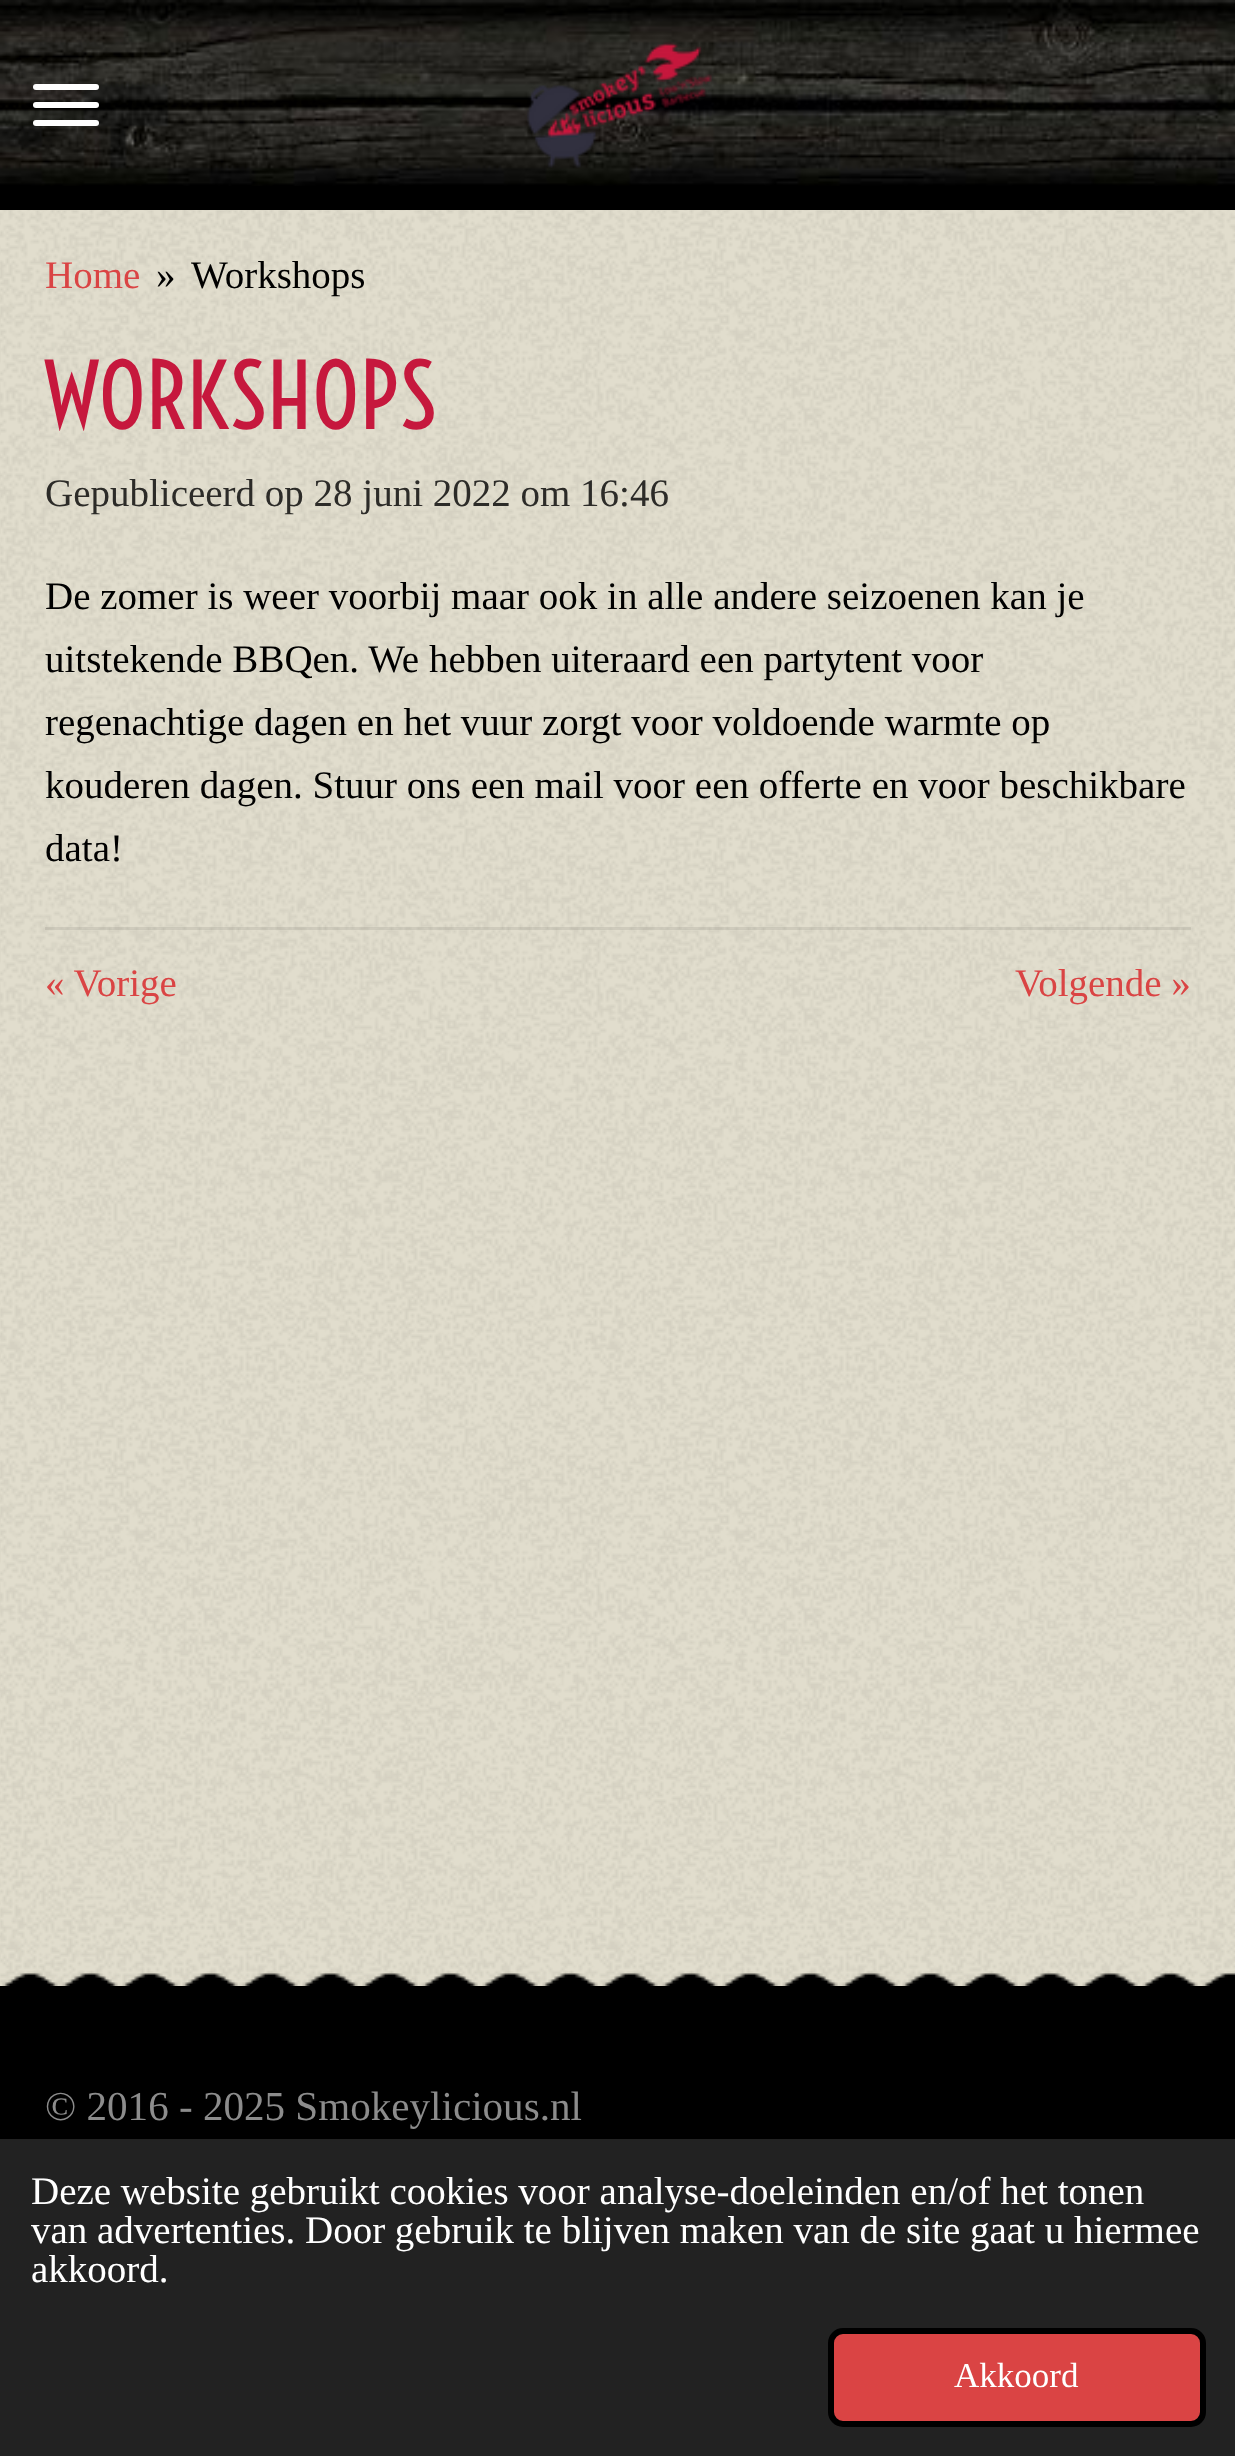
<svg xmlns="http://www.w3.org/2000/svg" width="1235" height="2456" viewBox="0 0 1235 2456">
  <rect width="100%" height="100%" fill="rgb(225,221,205)"/>
  <image x="0" y="210" width="1235" height="1776" href="pic1.png"/>
  <rect x="0" y="186" width="1235" height="24" fill="rgb(0,0,0)"/>
  <image x="0" y="0" width="1235" height="186" href="pic2.png"/>
  <rect x="0" y="37" width="132" height="118" fill="rgba(0,0,0,0.05)"/>
  <rect x="33" y="102" width="66" height="6" rx="3" fill="rgb(255,255,255)"/>
  <rect x="33" y="84" width="66" height="6" rx="3" fill="rgb(255,255,255)"/>
  <rect x="33" y="120" width="66" height="6" rx="3" fill="rgb(255,255,255)"/>
  <image x="527" y="42" width="185" height="126" href="pic3.png"/>
  <text x="45" y="288" font-family="Liberation Serif" font-size="39" fill="rgb(218,68,68)">Home</text>
  <g font-family="Liberation Serif" font-size="39" fill="rgb(0,0,0)">
    <text x="156" y="288">»</text>
    <text x="191" y="288">Workshops</text>
  </g>
  <text x="45" y="429" font-family="Voltaire" font-size="89.5" fill="rgb(198,24,61)">WORKSHOPS</text>
  <text x="45" y="506" font-family="Liberation Serif" font-size="39" fill="rgb(44,43,40)">Gepubliceerd op 28 juni 2022 om 16:46</text>
  <g font-family="Liberation Serif" font-size="39" fill="rgb(0,0,0)">
    <text>
      <tspan x="45" y="609">De zomer is weer voorbij maar ook in alle andere seizoenen kan je</tspan>
      <tspan x="45" y="672">uitstekende BBQen. We hebben uiteraard een partytent voor</tspan>
      <tspan x="45" y="735">regenachtige dagen en het vuur zorgt voor voldoende warmte op</tspan>
      <tspan x="45" y="798">kouderen dagen. Stuur ons een mail voor een offerte en voor beschikbare</tspan>
      <tspan x="45" y="861">data!</tspan>
    </text>
  </g>
  <rect x="45" y="927" width="1146" height="3" fill="rgba(0,0,0,0.08)"/>
  <g font-family="Liberation Serif" font-size="39" fill="rgb(218,68,68)">
    <text x="45" y="996">« Vorige</text>
    <text x="1015" y="996">Volgende »</text>
  </g>
  <rect x="0" y="1986" width="1235" height="153" fill="rgb(0,0,0)"/>
  <image x="2" y="1971" width="1233" height="15" href="pic4.png"/>
  <text x="45" y="2120" font-family="Liberation Serif" font-size="41.1" fill="rgb(140,140,140)">© 2016 - 2025 Smokeylicious.nl</text>
  <rect x="0" y="2139" width="1235" height="317" fill="rgb(34,34,34)"/>
  <g font-family="Liberation Serif" font-size="39" fill="rgb(255,255,255)">
    <text>
      <tspan x="31" y="2204">Deze website gebruikt cookies voor analyse-doeleinden en/of het tonen</tspan>
      <tspan x="31" y="2243">van advertenties. Door gebruik te blijven maken van de site gaat u hiermee</tspan>
      <tspan x="31" y="2282">akkoord.</tspan>
    </text>
  </g>
  <rect x="831" y="2331" width="372" height="93" rx="12" fill="rgb(218,68,68)" stroke="rgb(0,0,0)" stroke-width="6"/>
  <text x="954" y="2387" font-family="Liberation Serif" font-size="35" fill="rgb(255,255,255)">Akkoord</text>
</svg>
